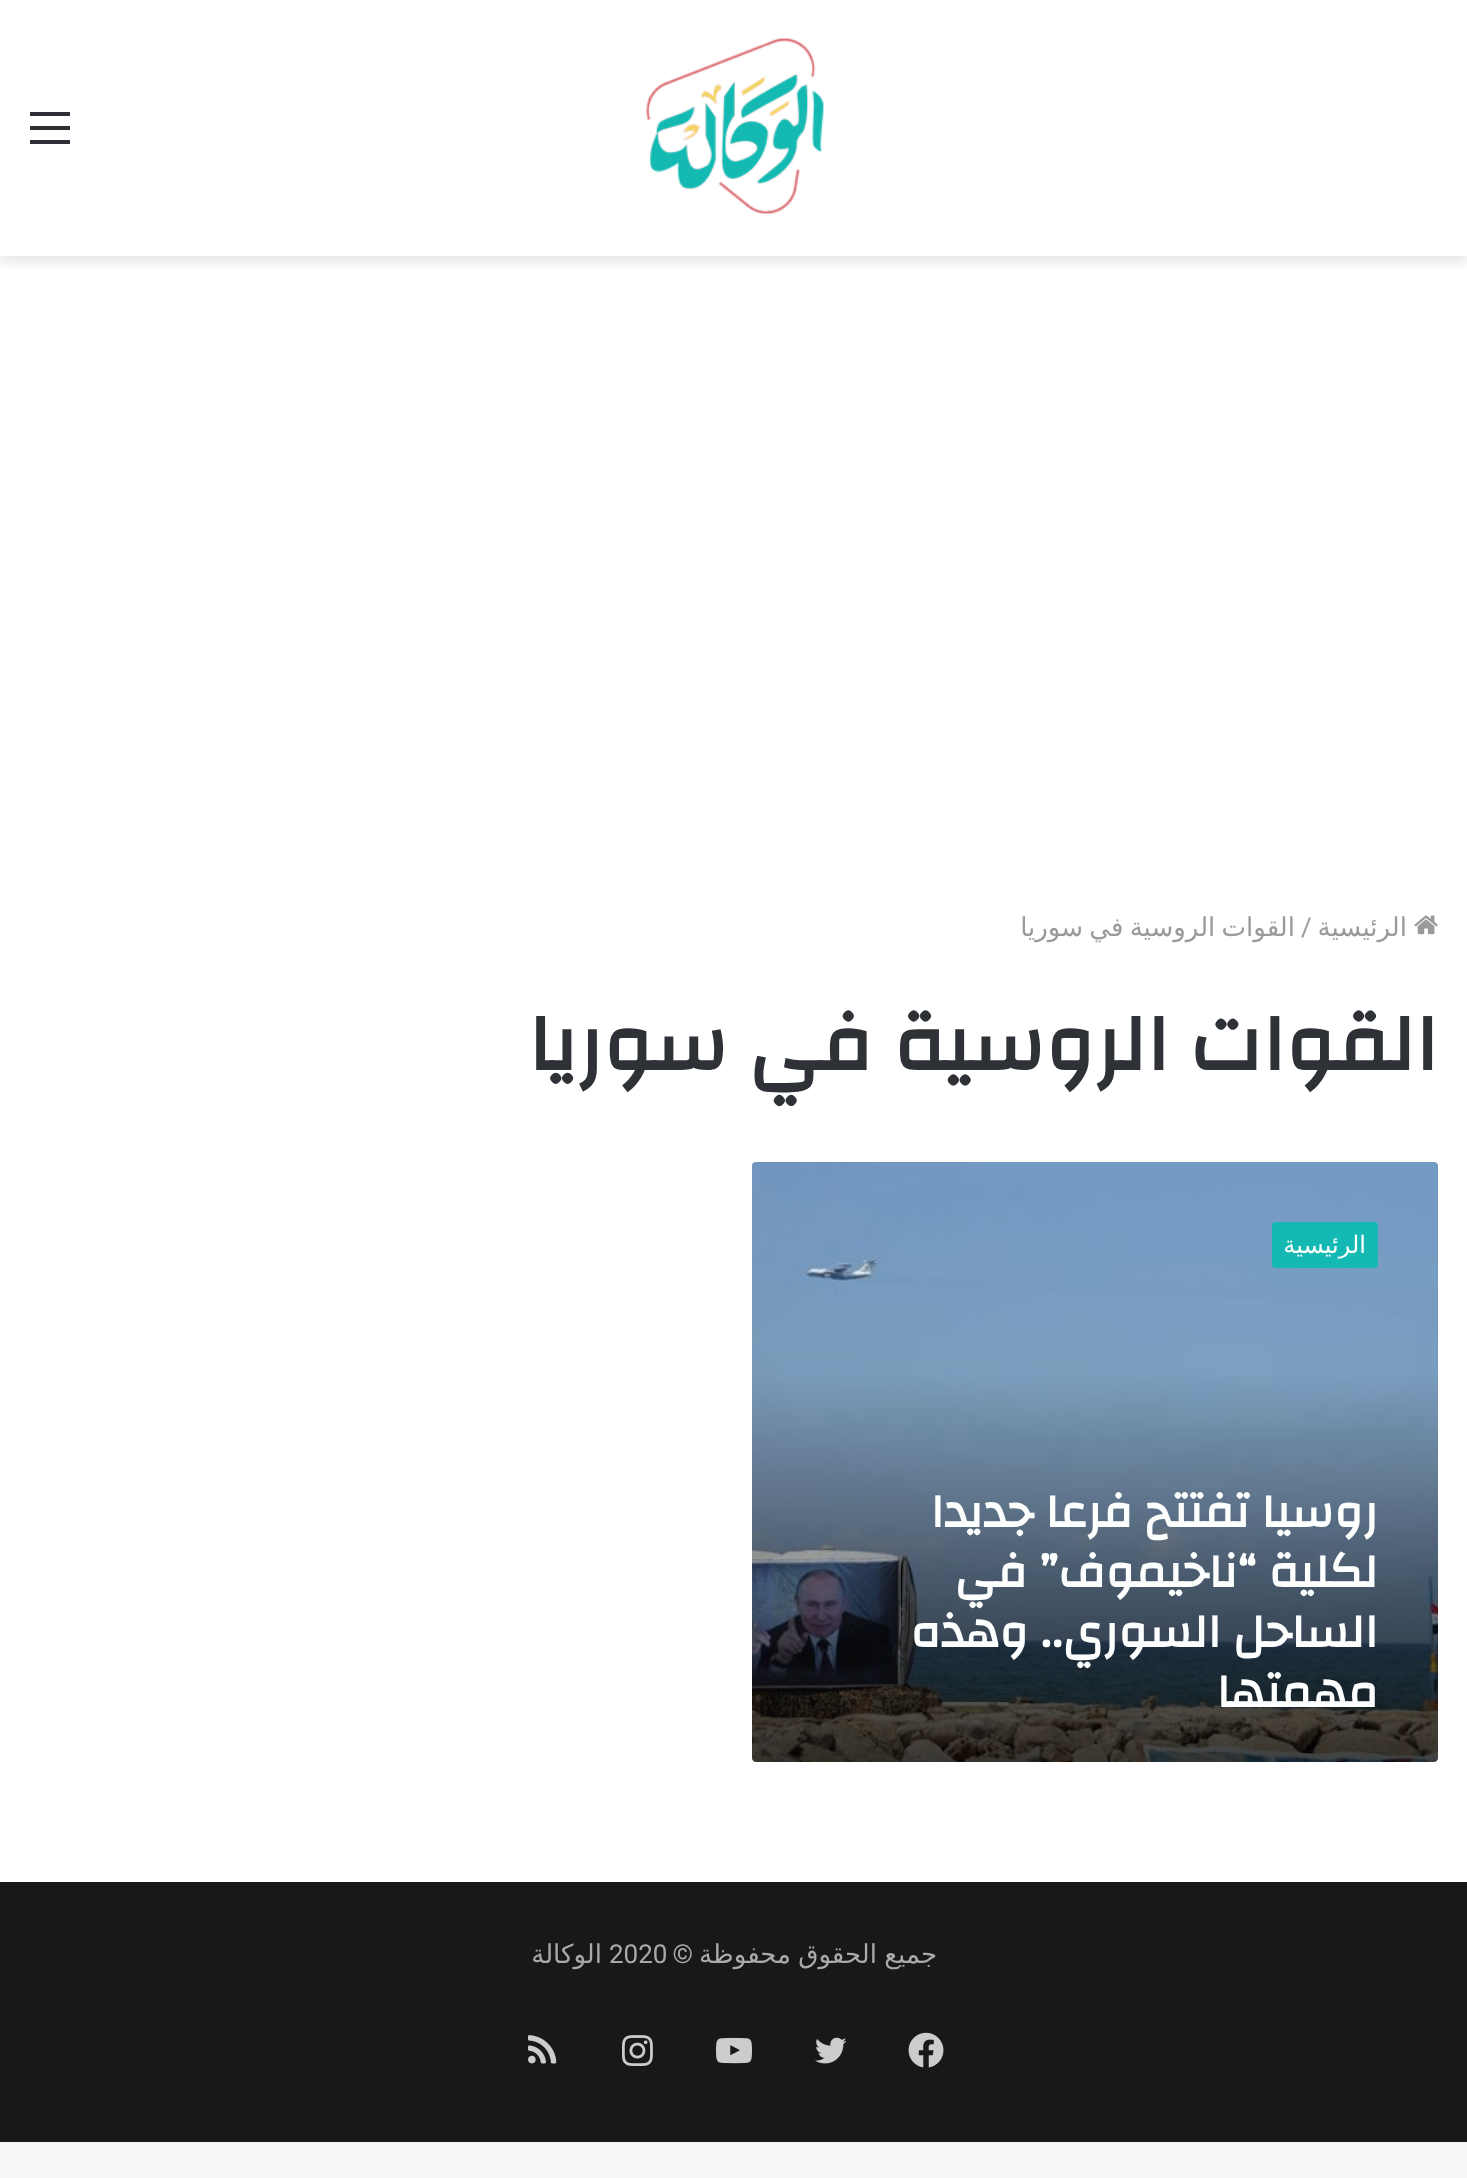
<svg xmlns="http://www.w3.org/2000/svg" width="1467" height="2178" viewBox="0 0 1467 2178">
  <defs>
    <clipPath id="clip1"><rect x="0" y="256" width="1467" height="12"/></clipPath>
    <linearGradient id="g1" gradientUnits="userSpaceOnUse" x1="1095" y1="1372" x2="1095" y2="1762"><stop offset="0" stop-color="rgb(0,0,0)" stop-opacity="0"/><stop offset="1" stop-color="rgb(0,0,0)" stop-opacity="0.74"/></linearGradient>
  </defs>
  <rect width="100%" height="100%" fill="rgb(247,247,247)"/>
  <rect x="0" y="0" width="1467" height="1882" fill="rgb(255,255,255)"/>
  <g clip-path="url(#clip1)">
    <rect x="0" y="6" width="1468" height="256" fill="rgba(0,0,0,0.1)" filter="blur(7px)"/>
  </g>
  <image x="646" y="38" width="179" height="176" href="pic1.png"/>
  <rect x="30" y="126" width="40" height="4" fill="rgb(44,47,52)"/>
  <rect x="30" y="112" width="40" height="4" fill="rgb(44,47,52)"/>
  <rect x="30" y="140" width="40" height="4" fill="rgb(44,47,52)"/>
  <image x="1414" y="915" width="24" height="20" href="pic2.png"/>
  <text x="1407" y="936" font-family="DejaVu Sans" font-size="26" direction="rtl" fill="rgb(154,154,154)">الرئيسية</text>
  <text x="1301" y="936" font-family="Roboto" font-size="26" fill="rgb(154,154,154)">/</text>
  <text x="1295" y="936" word-spacing="-2" font-family="DejaVu Sans" font-size="26" direction="rtl" fill="rgb(154,154,154)">القوات الروسية في سوريا</text>
  <text x="1438" y="1070" font-family="Changa" font-size="82" font-weight="bold" direction="rtl" fill="rgb(46,49,54)">القوات الروسية في سوريا</text>
  <image x="752" y="1162" width="686" height="600" href="pic3.png"/>
  <rect x="1272" y="1222" width="106" height="46" rx="4" fill="rgba(20,185,178,0.99)"/>
  <text x="1366" y="1253" font-family="DejaVu Sans" font-size="24" direction="rtl" fill="rgb(253,254,254)">الرئيسية</text>
  <path d="M752 1372H1438V1758C1438 1760 1436 1762 1434 1762H756C754 1762 752 1760 752 1758Z" fill="url(#g1)"/>
  <g font-family="Changa" font-size="48" font-weight="bold" direction="rtl" fill="rgb(253,254,254)">
    <text>
      <tspan x="1378" y="1527">روسيا تفتتح فرعا جديدا</tspan>
      <tspan x="1378" y="1587">لكلية “ناخيموف” في</tspan>
      <tspan x="1378" y="1647">الساحل السوري.. وهذه</tspan>
      <tspan x="1378" y="1707">مهمتها</tspan>
    </text>
  </g>
  <rect x="0" y="1882" width="1467" height="260" fill="rgb(24,24,24)"/>
  <text x="937" y="1963" word-spacing="-1" font-family="DejaVu Sans" font-size="26" direction="rtl" fill="rgb(170,170,170)">جميع الحقوق محفوظة</text>
  <text x="693" y="1963" font-family="Roboto" font-size="26" direction="rtl" fill="rgb(170,170,170)">©</text>
  <text x="609" y="1963" font-family="Roboto" font-size="26" fill="rgb(170,170,170)">2020</text>
  <text x="602" y="1963" font-family="DejaVu Sans" font-size="26" direction="rtl" fill="rgb(170,170,170)">الوكالة</text>
  <image x="908" y="2032" width="36" height="36" href="pic4.png"/>
  <image x="815" y="2037" width="32" height="27" href="pic5.png"/>
  <image x="716" y="2037" width="36" height="27" href="pic6.png"/>
  <image x="622" y="2035" width="31" height="31" href="pic7.png"/>
  <image x="528" y="2035" width="29" height="29" href="pic8.png"/>
</svg>
